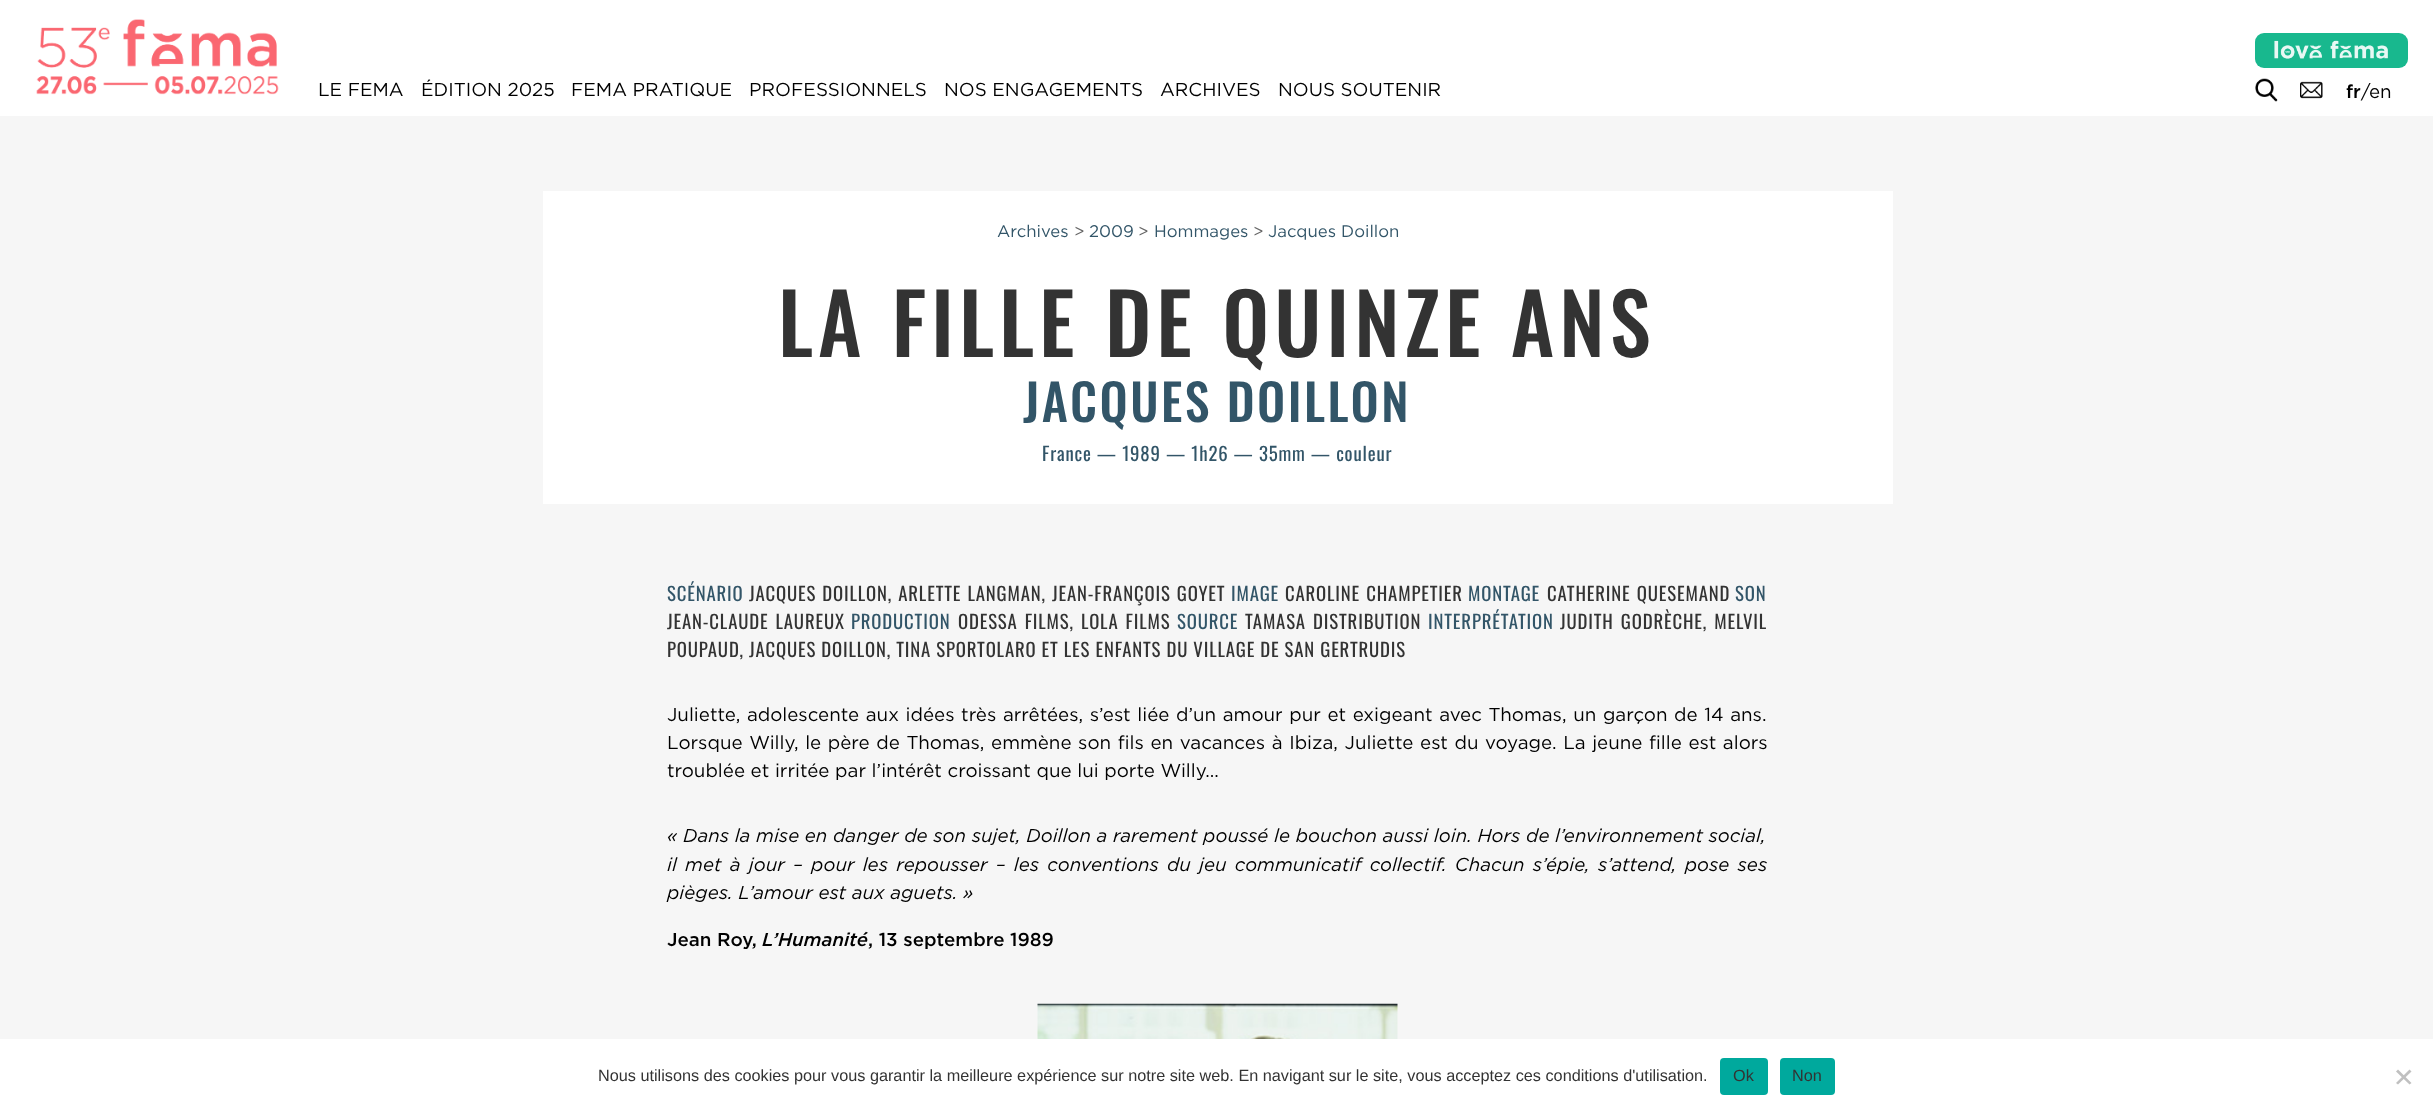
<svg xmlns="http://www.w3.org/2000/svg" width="2433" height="1114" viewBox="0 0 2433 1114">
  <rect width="100%" height="100%" fill="rgb(246,246,246)"/>
  <rect x="0" y="0" width="2433" height="116" fill="rgb(255,255,255)"/>
  <image x="36" y="19" width="243" height="76" href="pic1.png"/>
  <g font-family="Gotham" font-size="18.75" fill="rgb(0,0,0)">
    <text x="318" y="96">LE FEMA</text>
    <text x="421" y="96">ÉDITION 2025</text>
    <text x="571" y="96">FEMA PRATIQUE</text>
    <text x="749" y="96">PROFESSIONNELS</text>
    <text x="944" y="96">NOS ENGAGEMENTS</text>
    <text x="1160" y="96">ARCHIVES</text>
    <text x="1278" y="96">NOUS SOUTENIR</text>
  </g>
  <rect x="2255" y="33" width="153" height="35" rx="9" fill="rgb(24,184,142)"/>
  <image x="2274" y="40" width="114" height="19" href="pic2.png"/>
  <image x="2255" y="78" width="23" height="24" href="pic3.png"/>
  <image x="2300" y="81" width="23" height="18" href="pic4.png"/>
  <text x="2346" y="98" font-family="Gotham" font-size="18.75" font-weight="500" fill="rgb(0,0,0)">fr</text>
  <g font-family="Gotham" font-size="18.75" fill="rgb(0,0,0)">
    <text x="2361" y="98">/</text>
    <text x="2369" y="98">en</text>
  </g>
  <rect x="543" y="191" width="1350" height="313" fill="rgb(255,255,255)"/>
  <text x="997" y="237" font-family="Gotham" font-size="16.75" fill="rgb(50,85,104)">Archives</text>
  <text x="1074" y="237" font-family="Gotham" font-size="16.75" fill="rgb(102,102,102)">&gt;</text>
  <text x="1089" y="237" font-family="Gotham" font-size="16.75" fill="rgb(50,85,104)">2009</text>
  <text x="1138" y="237" font-family="Gotham" font-size="16.75" fill="rgb(102,102,102)">&gt;</text>
  <text x="1154" y="237" font-family="Gotham" font-size="16.75" fill="rgb(50,85,104)">Hommages</text>
  <text x="1253" y="237" font-family="Gotham" font-size="16.75" fill="rgb(102,102,102)">&gt;</text>
  <text x="1268" y="237" font-family="Gotham" font-size="16.75" fill="rgb(50,85,104)">Jacques Doillon</text>
  <text x="778" y="357" font-family="Oswald" font-size="83.25" font-weight="500" letter-spacing="5" fill="rgb(51,51,51)">LA FILLE DE QUINZE ANS</text>
  <text x="1023" y="422" font-family="Oswald" font-size="50" font-weight="500" letter-spacing="2.5" fill="rgb(50,85,104)">JACQUES DOILLON</text>
  <g font-family="Oswald" font-size="18.75" letter-spacing="0.85" fill="rgb(50,85,104)">
    <text x="1042" y="461">France — 1989 — 1h26 — 35mm — couleur</text>
    <text x="667" y="601">SCÉNARIO</text>
  </g>
  <text x="749" y="601" word-spacing="1" font-family="Oswald" font-size="18.75" letter-spacing="0.85" fill="rgb(51,51,51)">JACQUES DOILLON, ARLETTE LANGMAN, JEAN-FRANÇOIS GOYET</text>
  <text x="1231" y="601" font-family="Oswald" font-size="18.75" letter-spacing="0.85" fill="rgb(50,85,104)">IMAGE</text>
  <text x="1285" y="601" word-spacing="1" font-family="Oswald" font-size="18.75" letter-spacing="0.85" fill="rgb(51,51,51)">CAROLINE CHAMPETIER</text>
  <text x="1468" y="601" font-family="Oswald" font-size="18.75" letter-spacing="0.85" fill="rgb(50,85,104)">MONTAGE</text>
  <text x="1547" y="601" word-spacing="1" font-family="Oswald" font-size="18.75" letter-spacing="0.85" fill="rgb(51,51,51)">CATHERINE QUESEMAND</text>
  <text x="1735" y="601" font-family="Oswald" font-size="18.75" letter-spacing="0.85" fill="rgb(50,85,104)">SON</text>
  <text x="667" y="629" word-spacing="2" font-family="Oswald" font-size="18.75" letter-spacing="0.85" fill="rgb(51,51,51)">JEAN-CLAUDE LAUREUX</text>
  <text x="851" y="629" font-family="Oswald" font-size="18.75" letter-spacing="0.85" fill="rgb(50,85,104)">PRODUCTION</text>
  <text x="958" y="629" word-spacing="2" font-family="Oswald" font-size="18.75" letter-spacing="0.85" fill="rgb(51,51,51)">ODESSA FILMS, LOLA FILMS</text>
  <text x="1177" y="629" font-family="Oswald" font-size="18.75" letter-spacing="0.85" fill="rgb(50,85,104)">SOURCE</text>
  <text x="1245" y="629" word-spacing="2" font-family="Oswald" font-size="18.75" letter-spacing="0.85" fill="rgb(51,51,51)">TAMASA DISTRIBUTION</text>
  <text x="1428" y="629" font-family="Oswald" font-size="18.75" letter-spacing="0.85" fill="rgb(50,85,104)">INTERPRÉTATION</text>
  <g font-family="Oswald" font-size="18.75" letter-spacing="0.85" fill="rgb(51,51,51)">
    <text x="1560" y="629" word-spacing="2">JUDITH GODRÈCHE, MELVIL</text>
    <text x="667" y="657">POUPAUD, JACQUES DOILLON, TINA SPORTOLARO ET LES ENFANTS DU VILLAGE DE SAN GERTRUDIS</text>
  </g>
  <g font-family="Gotham" font-size="18.75" fill="rgb(0,0,0)">
    <text>
      <tspan x="667" y="721" word-spacing="1">Juliette, adolescente aux idées très arrêtées, s’est liée d’un amour pur et exigeant avec Thomas, un garçon de 14 ans.</tspan>
      <tspan x="667" y="749" word-spacing="1">Lorsque Willy, le père de Thomas, emmène son fils en vacances à Ibiza, Juliette est du voyage. La jeune fille est alors</tspan>
      <tspan x="667" y="777">troublée et irritée par l’intérêt croissant que lui porte Willy…</tspan>
    </text>
  </g>
  <g font-family="Gotham" font-size="18.75" font-style="italic" fill="rgb(0,0,0)">
    <text>
      <tspan x="667" y="842">« Dans la mise en danger de son sujet, Doillon a rarement poussé le bouchon aussi loin. Hors de l’environnement social,</tspan>
      <tspan x="667" y="871" word-spacing="2.6">il met à jour – pour les repousser – les conventions du jeu communicatif collectif. Chacun s’épie, s’attend, pose ses</tspan>
      <tspan x="667" y="899">pièges. L’amour est aux aguets. »</tspan>
    </text>
  </g>
  <text x="667" y="946" font-family="Gotham" font-size="18.75" font-weight="500" fill="rgb(0,0,0)">Jean Roy,</text>
  <text x="762" y="946" font-family="Gotham" font-size="18.75" font-weight="500" font-style="italic" fill="rgb(0,0,0)">L’Humanité</text>
  <text x="868" y="946" font-family="Gotham" font-size="18.75" font-weight="500" fill="rgb(0,0,0)">, 13 septembre 1989</text>
  <image x="1037" y="1003" width="361" height="36" href="pic5.png"/>
  <rect x="0" y="1039" width="2433" height="75" fill="rgb(255,255,255)"/>
  <text x="598" y="1081" font-family="Liberation Sans" font-size="16.25" fill="rgb(51,51,51)">Nous utilisons des cookies pour vous garantir la meilleure expérience sur notre site web. En navigant sur le site, vous acceptez ces conditions d'utilisation.</text>
  <rect x="1720" y="1058" width="48" height="37" rx="4" fill="rgb(0,169,157)"/>
  <text x="1733" y="1081" font-family="Liberation Sans" font-size="16.25" fill="rgb(51,51,51)">Ok</text>
  <rect x="1780" y="1058" width="55" height="37" rx="4" fill="rgb(0,169,157)"/>
  <text x="1792" y="1081" font-family="Liberation Sans" font-size="16.25" fill="rgb(51,51,51)">Non</text>
  <path d="M2409.5 1069.5L2411.5 1071.5L2398 1084.5L2396 1083Z" fill="rgb(192,192,192)"/>
  <path d="M2396 1071.5L2398 1069.5L2411.5 1083L2409.5 1084.5Z" fill="rgb(192,192,192)"/>
</svg>
